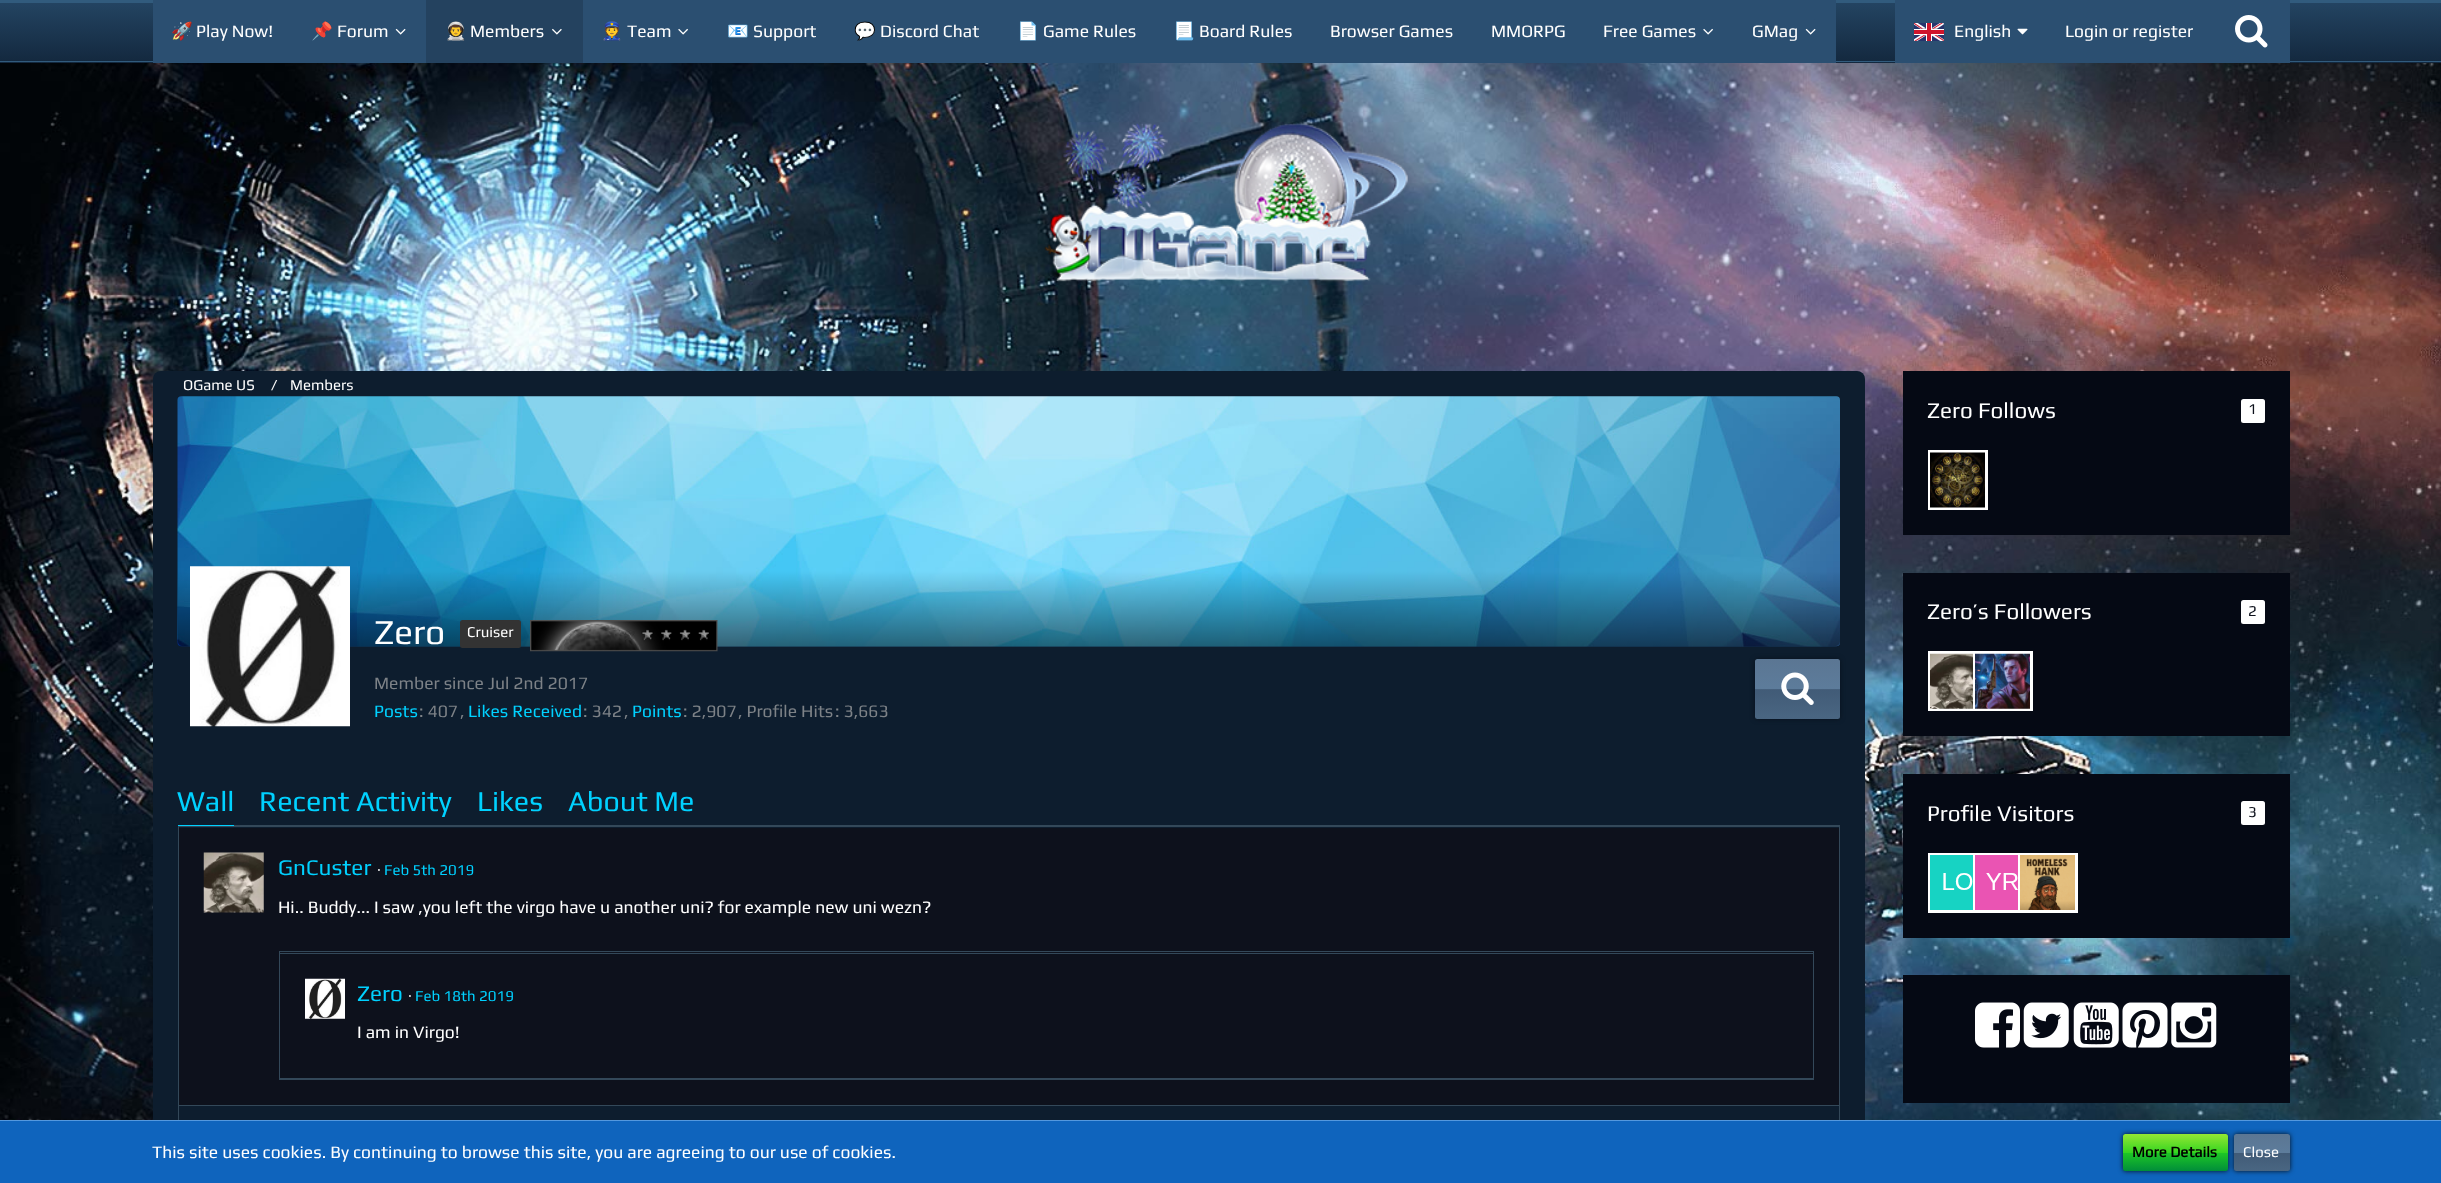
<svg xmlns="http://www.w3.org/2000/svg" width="2441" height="1183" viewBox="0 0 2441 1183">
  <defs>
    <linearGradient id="g1" gradientUnits="userSpaceOnUse" x1="1221" y1="63" x2="1221" y2="0"><stop offset="0" stop-color="rgb(19,40,62)"/><stop offset="1" stop-color="rgb(36,69,99)"/></linearGradient>
    <linearGradient id="g2" gradientUnits="userSpaceOnUse" x1="1009" y1="396" x2="1009" y2="646"><stop offset="0.7" stop-color="rgb(0,0,0)" stop-opacity="0"/><stop offset="1" stop-color="rgb(0,0,0)" stop-opacity="0.5"/></linearGradient>
    <linearGradient id="g3" gradientUnits="userSpaceOnUse" x1="1798" y1="719" x2="1798" y2="659"><stop offset="0" stop-color="rgb(74,102,130)"/><stop offset="0.49" stop-color="rgb(65,91,119)"/><stop offset="0.5" stop-color="rgb(93,124,155)"/><stop offset="1" stop-color="rgb(91,118,147)"/></linearGradient>
    <linearGradient id="g4" gradientUnits="userSpaceOnUse" x1="2175" y1="1134" x2="2175" y2="1171"><stop offset="0" stop-color="rgb(148,231,51)"/><stop offset="0.5" stop-color="rgb(54,213,33)"/><stop offset="0.51" stop-color="rgb(30,199,37)"/><stop offset="1" stop-color="rgb(0,142,58)"/></linearGradient>
    <linearGradient id="g5" gradientUnits="userSpaceOnUse" x1="2262" y1="1171" x2="2262" y2="1134"><stop offset="0" stop-color="rgb(74,102,130)"/><stop offset="0.49" stop-color="rgb(65,91,119)"/><stop offset="0.5" stop-color="rgb(93,124,155)"/><stop offset="1" stop-color="rgb(91,118,147)"/></linearGradient>
  </defs>
  <rect width="100%" height="100%" fill="rgb(255,255,255)"/>
  <image x="0" y="63" width="2441" height="1057" href="pic1.png"/>
  <rect x="0" y="3" width="2441" height="60" fill="url(#g1)"/>
  <rect x="0" y="61" width="2441" height="1" fill="rgb(49,91,125)"/>
  <rect x="0" y="0" width="2441" height="3" fill="rgb(49,91,125)"/>
  <rect x="153" y="0" width="273" height="63" fill="rgb(43,79,113)"/>
  <text x="171" y="37" font-family="Noto Color Emoji" font-size="17.5" fill="rgb(255,255,255)">🚀</text>
  <text x="196" y="37" font-family="Play" font-size="17.5" fill="rgb(255,255,255)">Play Now!</text>
  <text x="311" y="37" font-family="Noto Color Emoji" font-size="17.5" fill="rgb(255,255,255)">📌</text>
  <text x="337" y="37" font-family="Play" font-size="17.5" fill="rgb(255,255,255)">Forum</text>
  <image x="395" y="28" width="11" height="7" href="pic2.png"/>
  <rect x="426" y="0" width="157" height="63" fill="rgb(36,66,95)"/>
  <text x="445" y="37" font-family="Noto Color Emoji" font-size="17.5" fill="rgb(255,255,255)">👨‍🚀</text>
  <text x="470" y="37" font-family="Play" font-size="17.5" fill="rgb(255,255,255)">Members</text>
  <image x="552" y="28" width="10" height="7" href="pic3.png"/>
  <rect x="583" y="0" width="1253" height="63" fill="rgb(43,79,113)"/>
  <text x="601" y="37" font-family="Noto Color Emoji" font-size="17.5" fill="rgb(255,255,255)">👮</text>
  <text x="627" y="37" font-family="Play" font-size="17.5" fill="rgb(255,255,255)">Team</text>
  <image x="678" y="28" width="10" height="7" href="pic4.png"/>
  <text x="727" y="37" font-family="Noto Color Emoji" font-size="17.5" fill="rgb(255,255,255)">📧</text>
  <text x="753" y="37" font-family="Play" font-size="17.5" fill="rgb(255,255,255)">Support</text>
  <text x="854" y="37" font-family="Noto Color Emoji" font-size="17.5" fill="rgb(255,255,255)">💬</text>
  <text x="880" y="37" font-family="Play" font-size="17.5" fill="rgb(255,255,255)">Discord Chat</text>
  <text x="1017" y="37" font-family="Noto Color Emoji" font-size="17.5" fill="rgb(255,255,255)">📄</text>
  <text x="1043" y="37" font-family="Play" font-size="17.5" fill="rgb(255,255,255)">Game Rules</text>
  <text x="1173" y="37" font-family="Noto Color Emoji" font-size="17.5" fill="rgb(255,255,255)">📃</text>
  <g font-family="Play" font-size="17.5" fill="rgb(255,255,255)">
    <text x="1199" y="37">Board Rules</text>
    <text x="1330" y="37">Browser Games</text>
    <text x="1491" y="37">MMORPG</text>
    <text x="1603" y="37">Free Games</text>
  </g>
  <image x="1703" y="28" width="10" height="7" href="pic4.png"/>
  <text x="1752" y="37" font-family="Play" font-size="17.5" fill="rgb(255,255,255)">GMag</text>
  <image x="1805" y="28" width="11" height="7" href="pic2.png"/>
  <rect x="1895" y="0" width="395" height="63" fill="rgb(43,79,113)"/>
  <image x="1914" y="23" width="30" height="18" href="pic5.png"/>
  <text x="1954" y="37" font-family="Play" font-size="17.5" fill="rgb(255,255,255)">English</text>
  <image x="2017" y="28" width="11" height="7" href="pic6.png"/>
  <text x="2065" y="37" font-family="Play" font-size="17.5" fill="rgb(255,255,255)">Login or register</text>
  <image x="2235" y="15" width="33" height="33" href="pic7.png"/>
  <image x="1044" y="123" width="364" height="159" href="pic8.png"/>
  <rect x="153" y="371" width="1712" height="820" rx="8" fill="rgb(13,29,46)"/>
  <g font-family="Play" font-size="15" fill="rgb(255,255,255)">
    <text x="183" y="390">OGame US</text>
    <text x="271" y="390">/</text>
    <text x="290" y="390">Members</text>
  </g>
  <image x="177" y="396" width="1663" height="251" href="pic9.png"/>
  <path d="M178 396H1840V642C1840 644 1838 646 1836 646H182C180 646 178 644 178 642Z" fill="url(#g2)"/>
  <image x="190" y="566" width="160" height="161" href="pic10.png"/>
  <text x="374" y="644" font-family="Play" font-size="35" fill="rgb(255,255,255)">Zero</text>
  <rect x="460" y="620" width="61" height="28" rx="2.5" fill="rgb(51,51,51)"/>
  <text x="467" y="637" font-family="Play" font-size="15" fill="rgb(255,255,255)">Cruiser</text>
  <image x="530" y="620" width="188" height="32" href="pic11.png"/>
  <text x="374" y="689" font-family="Play" font-size="17.5" fill="rgb(125,130,135)">Member since Jul 2nd 2017</text>
  <text x="374" y="717" font-family="Play" font-size="17.5" fill="rgb(0,209,255)">Posts</text>
  <g font-family="Play" font-size="17.5" fill="rgb(125,130,135)">
    <text x="419" y="717">: 407</text>
    <text x="460" y="717">,</text>
  </g>
  <text x="468" y="717" font-family="Play" font-size="17.5" fill="rgb(0,209,255)">Likes Received</text>
  <g font-family="Play" font-size="17.5" fill="rgb(125,130,135)">
    <text x="583" y="717">: 342</text>
    <text x="624" y="717">,</text>
  </g>
  <text x="632" y="717" font-family="Play" font-size="17.5" fill="rgb(0,209,255)">Points</text>
  <g font-family="Play" font-size="17.5" fill="rgb(125,130,135)">
    <text x="683" y="717">: 2,907</text>
    <text x="738" y="717">, Profile Hits</text>
    <text x="835" y="717">: 3,663</text>
  </g>
  <rect x="1755" y="659" width="85" height="60" rx="2.5" fill="rgb(8,17,28)" filter="blur(2.5px)"/>
  <rect x="1755" y="659" width="85" height="60" rx="2.5" fill="url(#g3)"/>
  <image x="1781" y="672" width="33" height="33" href="pic12.png"/>
  <rect x="234" y="825" width="1606" height="1" fill="rgb(51,72,89)"/>
  <text x="177" y="811" font-family="Play" font-size="28.75" fill="rgb(0,209,255)">Wall</text>
  <rect x="178" y="825" width="56" height="1" fill="rgb(0,209,255)"/>
  <g font-family="Play" font-size="28.75" fill="rgb(0,209,255)">
    <text x="259" y="811">Recent Activity</text>
    <text x="477" y="811">Likes</text>
    <text x="568" y="811">About Me</text>
  </g>
  <rect x="178.5" y="826.5" width="1661" height="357" fill="none" stroke="rgb(51,72,89)"/>
  <rect x="179" y="828" width="1660" height="277" fill="rgb(13,17,28)"/>
  <rect x="179" y="1105" width="1660" height="1" fill="rgb(51,72,89)"/>
  <image x="203" y="852" width="61" height="61" href="pic13.png"/>
  <text x="278" y="875" font-family="Play" font-size="22.5" fill="rgb(0,209,255)">GnCuster</text>
  <text x="377" y="875" font-family="Play" font-size="15" fill="rgb(255,255,255)">·</text>
  <text x="384" y="875" font-family="Play" font-size="15" fill="rgb(0,209,255)">Feb 5th 2019</text>
  <text x="278" y="913" font-family="Play" font-size="17.5" fill="rgb(255,255,255)">Hi.. Buddy... I saw ,you left the virgo have u another uni? for example new uni wezn?</text>
  <rect x="279.5" y="951.5" width="1534" height="128" fill="none" stroke="rgb(51,72,89)"/>
  <rect x="280" y="953" width="1533" height="1" fill="rgb(51,72,89)"/>
  <rect x="280" y="1078" width="1533" height="1" fill="rgb(51,72,89)"/>
  <image x="305" y="978" width="40" height="41" href="pic14.png"/>
  <text x="357" y="1001" font-family="Play" font-size="22.5" fill="rgb(0,209,255)">Zero</text>
  <text x="408" y="1001" font-family="Play" font-size="15" fill="rgb(255,255,255)">·</text>
  <text x="415" y="1001" font-family="Play" font-size="15" fill="rgb(0,209,255)">Feb 18th 2019</text>
  <text x="357" y="1038" font-family="Play" font-size="17.5" fill="rgb(255,255,255)">I am in Virgo!</text>
  <rect x="1903" y="371" width="387" height="164" fill="rgb(5,9,20)"/>
  <text x="1927" y="418" font-family="Play" font-size="22.5" fill="rgb(255,255,255)">Zero Follows</text>
  <rect x="2241" y="399" width="24" height="24" rx="2.5" fill="rgb(255,255,255)"/>
  <text x="2248" y="414" font-family="Play" font-size="15" fill="rgb(13,17,28)">1</text>
  <rect x="1929.5" y="451.5" width="57" height="57" fill="none" stroke="rgb(255,255,255)" stroke-width="3"/>
  <image x="1930" y="452" width="55" height="56" href="pic15.png"/>
  <rect x="1903" y="573" width="387" height="163" fill="rgb(5,9,20)"/>
  <text x="1927" y="619" font-family="Play" font-size="22.5" fill="rgb(255,255,255)">Zero’s Followers</text>
  <rect x="2241" y="600" width="24" height="24" rx="2.5" fill="rgb(255,255,255)"/>
  <text x="2248" y="616" font-family="Play" font-size="15" fill="rgb(13,17,28)">2</text>
  <rect x="1929.5" y="652.5" width="57" height="57" fill="none" stroke="rgb(255,255,255)" stroke-width="3"/>
  <image x="1930" y="653" width="43" height="56" href="pic16.png"/>
  <rect x="1974.5" y="652.5" width="57" height="57" fill="none" stroke="rgb(255,255,255)" stroke-width="3"/>
  <image x="1975" y="653" width="55" height="56" href="pic17.png"/>
  <rect x="1903" y="774" width="387" height="164" fill="rgb(5,9,20)"/>
  <text x="1927" y="821" font-family="Play" font-size="22.5" fill="rgb(255,255,255)">Profile Visitors</text>
  <rect x="2241" y="801" width="24" height="24" rx="2.5" fill="rgb(255,255,255)"/>
  <text x="2248" y="817" font-family="Play" font-size="15" fill="rgb(13,17,28)">3</text>
  <rect x="1929.5" y="854.5" width="57" height="57" fill="none" stroke="rgb(255,255,255)" stroke-width="3"/>
  <image x="1930" y="855" width="43" height="55" href="pic18.png"/>
  <rect x="1974.5" y="854.5" width="57" height="57" fill="none" stroke="rgb(255,255,255)" stroke-width="3"/>
  <image x="1975" y="855" width="43" height="55" href="pic19.png"/>
  <rect x="2019.5" y="854.5" width="57" height="57" fill="none" stroke="rgb(255,255,255)" stroke-width="3"/>
  <image x="2020" y="855" width="55" height="55" href="pic20.png"/>
  <rect x="1903" y="975" width="387" height="128" fill="rgb(5,9,20)"/>
  <image x="1975" y="1002" width="45" height="46" href="pic21.png"/>
  <image x="2023" y="1002" width="46" height="46" href="pic22.png"/>
  <image x="2073" y="1002" width="46" height="46" href="pic23.png"/>
  <image x="2122" y="1002" width="46" height="46" href="pic24.png"/>
  <image x="2171" y="1002" width="46" height="46" href="pic25.png"/>
  <rect x="0" y="1121" width="2441" height="62" fill="rgb(15,100,189)"/>
  <rect x="0" y="1120" width="2441" height="1" fill="rgb(84,152,222)"/>
  <text x="152" y="1158" font-family="Play" font-size="17.5" fill="rgb(255,255,255)">This site uses cookies. By continuing to browse this site, you are agreeing to our use of cookies.</text>
  <rect x="2123" y="1134" width="105" height="37" rx="2.5" fill="rgb(8,17,28)" filter="blur(2.5px)"/>
  <rect x="2123" y="1134" width="105" height="37" rx="2.5" fill="url(#g4)"/>
  <text x="2132" y="1157" font-family="Play" font-size="15" font-weight="bold" fill="rgb(0,0,0)">More Details</text>
  <rect x="2234" y="1134" width="56" height="37" rx="2.5" fill="rgb(8,17,28)" filter="blur(2.5px)"/>
  <rect x="2234" y="1134" width="56" height="37" rx="2.5" fill="url(#g5)"/>
  <text x="2243" y="1157" font-family="Play" font-size="15" fill="rgb(255,255,255)">Close</text>
</svg>
